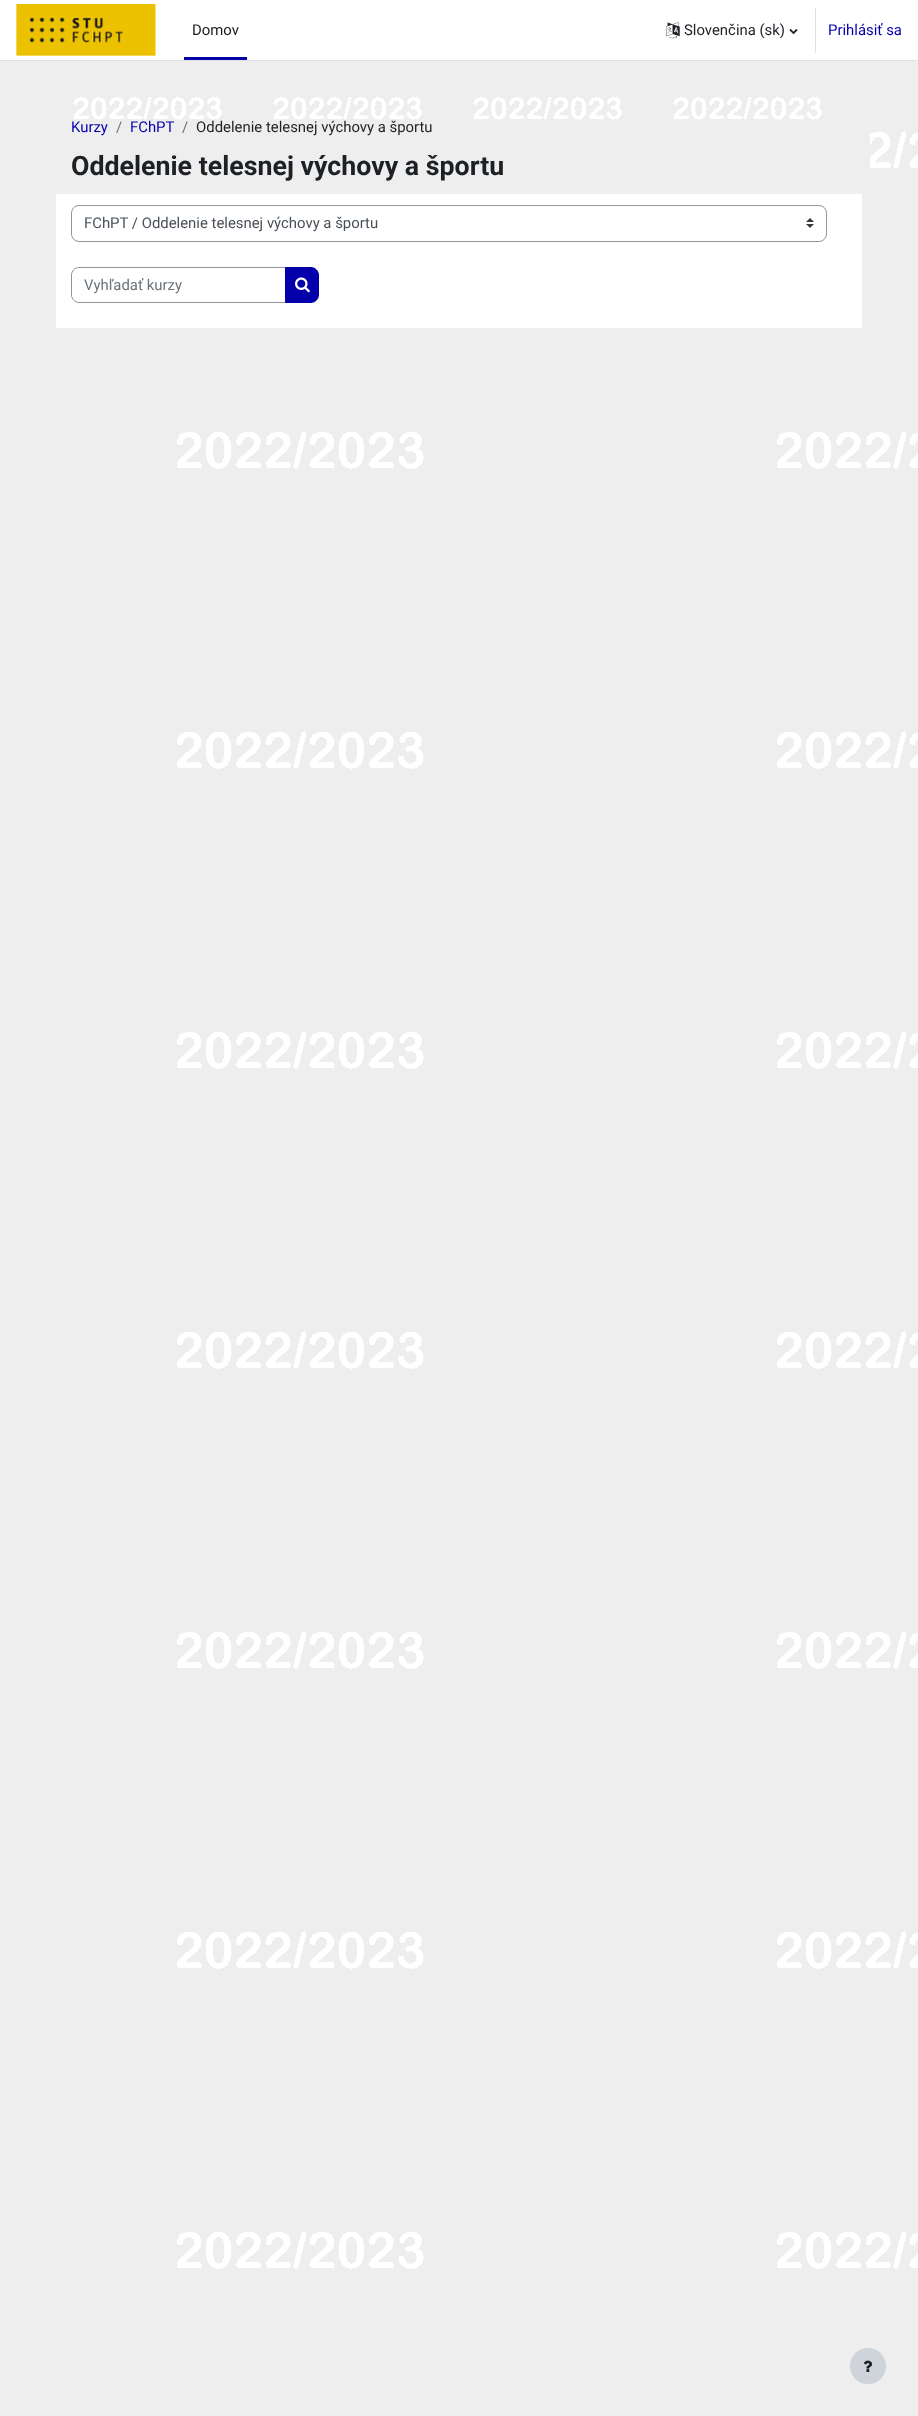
<svg xmlns="http://www.w3.org/2000/svg" width="918" height="2416" viewBox="0 0 918 2416">
  <rect width="100%" height="100%" fill="rgb(238,238,238)"/>
  <image x="177" y="131" width="741" height="2138" href="pic1.png"/>
  <rect x="0" y="0" width="918" height="60" fill="rgb(255,255,255)"/>
  <rect x="0" y="60" width="918" height="1" fill="rgb(222,226,230)"/>
  <image x="16" y="4" width="140" height="52" href="pic2.png"/>
  <rect x="184" y="57" width="63" height="3" fill="rgb(3,0,170)"/>
  <text x="192" y="35" font-family="Roboto" font-size="14.9" fill="rgb(26,26,26)">Domov</text>
  <image x="666" y="22" width="14" height="17" href="pic3.png"/>
  <text x="684" y="35" font-family="Roboto" font-size="14.9" fill="rgb(29,33,37)">Slovenčina (sk)</text>
  <image x="789" y="29" width="9" height="6" href="pic4.png"/>
  <rect x="815" y="8" width="1" height="45" fill="rgb(222,226,230)"/>
  <text x="828" y="35" font-family="Roboto" font-size="14.9" fill="rgb(3,0,170)">Prihlásiť sa</text>
  <rect x="48" y="84" width="822" height="284" rx="8" fill="rgb(238,238,238)"/>
  <image x="73" y="97" width="749" height="23" href="pic5.png"/>
  <text x="71" y="132" font-family="Roboto" font-size="14.9" fill="rgb(3,0,170)">Kurzy</text>
  <text x="116" y="132" font-family="Roboto" font-size="14.9" fill="rgb(106,115,123)">/</text>
  <text x="130" y="132" font-family="Roboto" font-size="14.9" fill="rgb(3,0,170)">FChPT</text>
  <text x="182" y="132" font-family="Roboto" font-size="14.9" fill="rgb(106,115,123)">/</text>
  <text x="196" y="132" font-family="Roboto" font-size="14.9" fill="rgb(29,33,37)">Oddelenie telesnej výchovy a športu</text>
  <text x="71" y="175" font-family="Roboto" font-size="26.75" font-weight="bold" fill="rgb(29,33,37)">Oddelenie telesnej výchovy a športu</text>
  <rect x="56" y="194" width="806" height="134" fill="rgb(255,255,255)"/>
  <image x="806" y="218" width="8" height="10" href="pic6.png"/>
  <rect x="71.5" y="205.5" width="755" height="36" rx="7.5" fill="none" stroke="rgb(143,149,158)"/>
  <text x="84" y="228" font-family="Roboto" font-size="14.9" fill="rgb(73,80,87)">FChPT / Oddelenie telesnej výchovy a športu</text>
  <path d="M79 267.5H285.5V302.5H79C75 302.5 71.5 299 71.5 295V275C71.5 271 75 267.5 79 267.5Z" fill="none" stroke="rgb(143,149,158)"/>
  <text x="84" y="290" font-family="Roboto" font-size="14.9" fill="rgb(106,115,123)">Vyhľadať kurzy</text>
  <path d="M285.5 267.5H311C315 267.5 318.5 271 318.5 275V295C318.5 299 315 302.5 311 302.5H285.5Z" fill="rgb(3,0,170)" stroke="rgb(3,0,170)"/>
  <image x="295" y="277" width="15" height="16" href="pic7.png"/>
  <circle cx="868" cy="2366" r="18" fill="rgb(206,212,218)"/>
  <image x="863" y="2360" width="10" height="12" href="pic8.png"/>
</svg>
